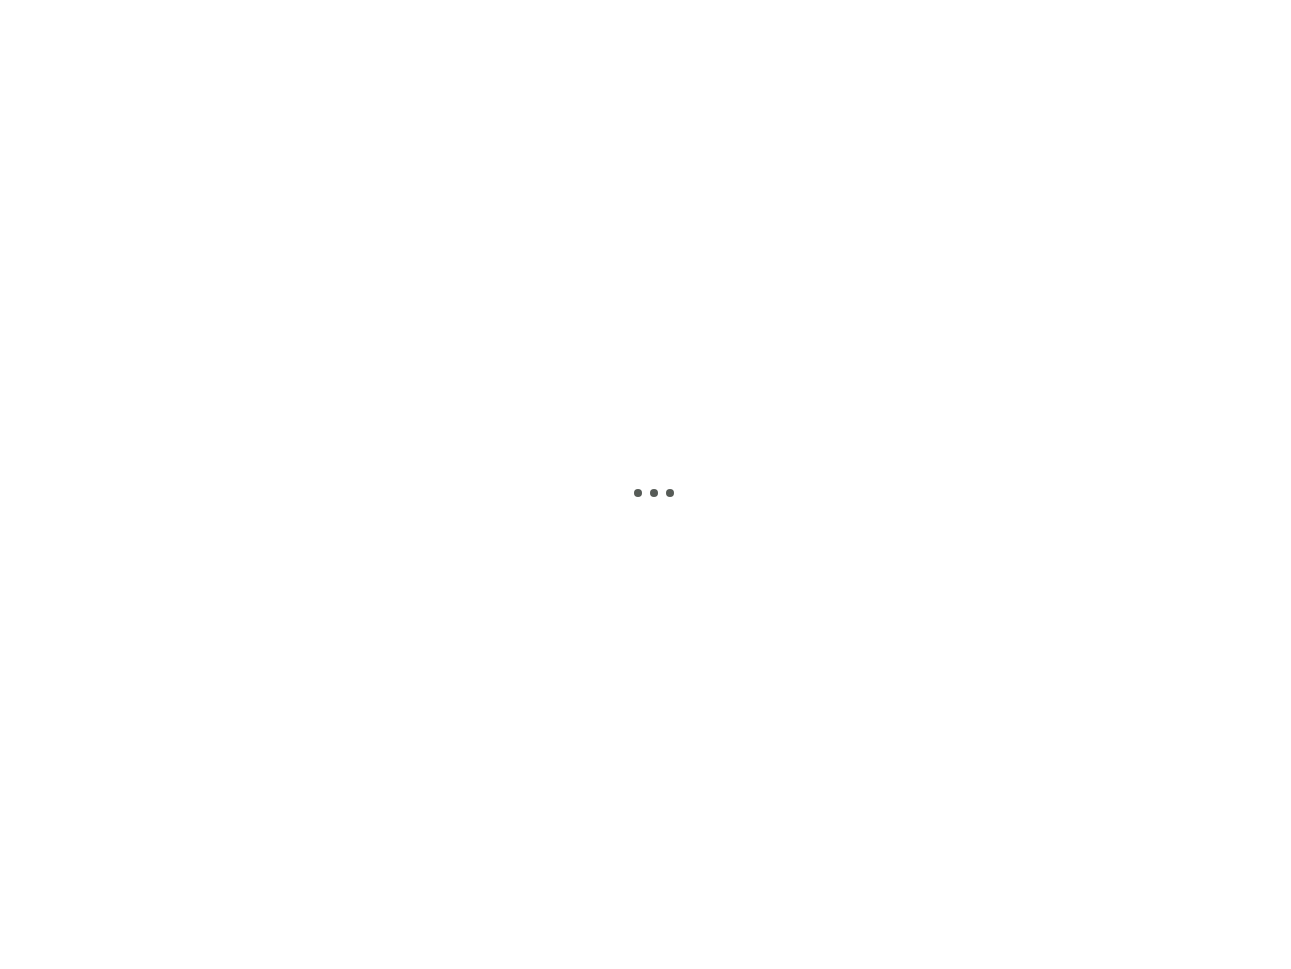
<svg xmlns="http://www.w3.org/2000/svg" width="1291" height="969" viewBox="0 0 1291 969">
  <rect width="100%" height="100%" fill="rgb(255,255,255)"/>
  <circle cx="638" cy="493" r="4" fill="rgb(86,91,87)"/>
  <circle cx="654" cy="493" r="4" fill="rgb(86,91,87)"/>
  <circle cx="670" cy="493" r="4" fill="rgb(86,91,87)"/>
</svg>
